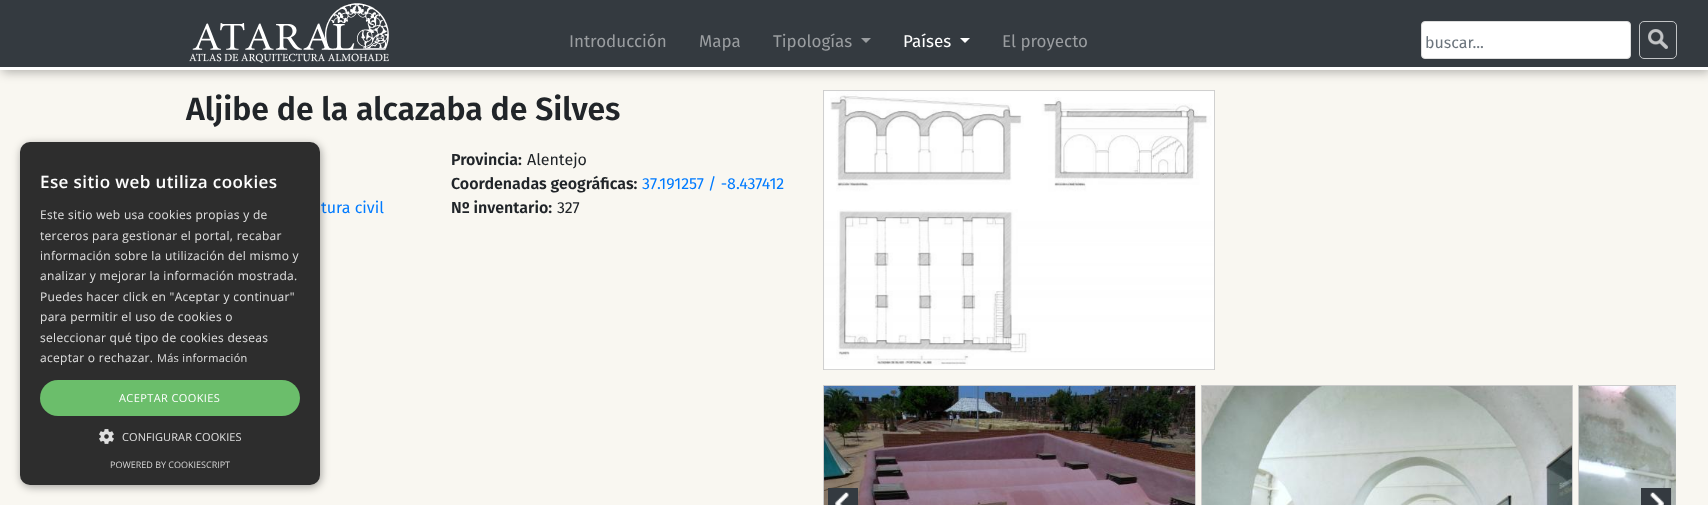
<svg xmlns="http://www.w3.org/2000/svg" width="1708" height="505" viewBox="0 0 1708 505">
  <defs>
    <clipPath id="clip1"><rect x="823" y="385" width="853" height="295"/></clipPath>
  </defs>
  <rect width="100%" height="100%" fill="rgb(249,247,241)"/>
  <rect x="2" y="2" width="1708" height="70" fill="rgba(0,0,0,0.3)" filter="blur(5.5px)"/>
  <rect x="0" y="0" width="1708" height="67" fill="rgb(52,58,64)"/>
  <rect x="0" y="67" width="1708" height="3" fill="rgb(255,255,255)"/>
  <image x="189" y="3" width="200" height="60" href="pic1.png"/>
  <g font-family="Fira Sans" font-size="17" fill="rgb(154,157,160)">
    <text x="569" y="47">Introducción</text>
    <text x="699" y="47">Mapa</text>
    <text x="773" y="47">Tipologías</text>
  </g>
  <path d="M861 38H871L866 43Z" fill="rgb(154,157,160)"/>
  <text x="903" y="47" font-family="Fira Sans" font-size="17" fill="rgb(255,255,255)">Países</text>
  <path d="M960 38H970L965 43Z" fill="rgb(255,255,255)"/>
  <text x="1002" y="47" font-family="Fira Sans" font-size="17" fill="rgb(154,157,160)">El proyecto</text>
  <rect x="1421.5" y="21.5" width="209" height="37" rx="3.5" fill="rgb(255,255,255)" stroke="rgb(221,221,221)"/>
  <text x="1425" y="48" font-family="Fira Sans" font-size="16" fill="rgb(108,117,125)">buscar...</text>
  <image x="1648" y="29" width="20" height="20" href="pic2.png"/>
  <rect x="1639.5" y="21.5" width="37" height="37" rx="4.5" fill="none" stroke="rgb(194,196,198)"/>
  <text x="186" y="120" font-family="Fira Sans" font-size="32" font-weight="600" fill="rgb(33,37,41)">Aljibe de la alcazaba de Silves</text>
  <text x="451" y="165" font-family="Fira Sans" font-size="16" font-weight="600" fill="rgb(33,37,41)">Provincia:</text>
  <text x="527" y="165" font-family="Fira Sans" font-size="16" fill="rgb(33,37,41)">Alentejo</text>
  <text x="451" y="189" font-family="Fira Sans" font-size="16" font-weight="600" fill="rgb(33,37,41)">Coordenadas geográficas:</text>
  <g font-family="Fira Sans" font-size="16" fill="rgb(0,123,255)">
    <text x="642" y="189">37.191257 / -8.437412</text>
    <text x="321" y="213">tura civil</text>
  </g>
  <text x="451" y="213" font-family="Fira Sans" font-size="16" font-weight="600" fill="rgb(33,37,41)">Nº inventario:</text>
  <text x="557" y="213" font-family="Fira Sans" font-size="16" fill="rgb(33,37,41)">327</text>
  <rect x="823.5" y="90.5" width="391" height="279" fill="none" stroke="rgb(204,204,204)"/>
  <image x="823" y="90" width="392" height="280" href="pic3.png"/>
  <rect x="823.5" y="385.5" width="372" height="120" fill="none" stroke="rgb(204,204,204)"/>
  <image x="824" y="386" width="371" height="119" href="pic4.png"/>
  <rect x="1201.5" y="385.5" width="371" height="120" fill="none" stroke="rgb(204,204,204)"/>
  <image x="1202" y="386" width="370" height="119" href="pic5.png"/>
  <g clip-path="url(#clip1)">
    <rect x="1578.5" y="385.5" width="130" height="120" fill="none" stroke="rgb(204,204,204)"/>
  </g>
  <image x="1579" y="386" width="97" height="119" href="pic6.png"/>
  <rect x="828" y="488" width="30" height="17" fill="rgb(52,58,64)"/>
  <image x="835" y="492" width="14" height="13" href="pic7.png"/>
  <rect x="1641" y="488" width="30" height="17" fill="rgb(52,58,64)"/>
  <image x="1650" y="492" width="14" height="13" href="pic8.png"/>
  <rect x="21" y="144" width="300" height="343" rx="10" fill="rgba(0,0,0,0.35)" filter="blur(4px)"/>
  <rect x="20" y="142" width="300" height="343" rx="10" fill="rgb(45,45,45)"/>
  <text x="40" y="188" font-family="Open Sans" font-size="17" font-weight="600" letter-spacing="0.4" fill="rgb(255,255,255)">Ese sitio web utiliza cookies</text>
  <g font-family="Open Sans" font-size="12" letter-spacing="0.3" fill="rgb(224,224,224)">
    <text>
      <tspan x="40" y="219">Este sitio web usa cookies propias y de</tspan>
      <tspan x="40" y="240">terceros para gestionar el portal, recabar</tspan>
      <tspan x="40" y="260">información sobre la utilización del mismo y</tspan>
      <tspan x="40" y="280">analizar y mejorar la información mostrada.</tspan>
      <tspan x="40" y="301">Puedes hacer click en "Aceptar y continuar"</tspan>
      <tspan x="40" y="321">para permitir el uso de cookies o</tspan>
      <tspan x="40" y="342">seleccionar qué tipo de cookies deseas</tspan>
      <tspan x="40" y="362">aceptar o rechazar.</tspan>
    </text>
  </g>
  <text x="157" y="362" font-family="Open Sans" font-size="11" letter-spacing="0.3" fill="rgb(224,224,224)">Más información</text>
  <rect x="40" y="380" width="260" height="36" rx="18" fill="rgb(107,190,107)"/>
  <text x="119" y="402" font-family="Open Sans" font-size="11" letter-spacing="0.4" fill="rgb(255,255,255)">ACEPTAR COOKIES</text>
  <image x="99" y="429" width="15" height="15" href="pic9.png"/>
  <text x="122" y="441" font-family="Open Sans" font-size="11" letter-spacing="0.1" fill="rgb(224,224,224)">CONFIGURAR COOKIES</text>
  <text x="110" y="468" font-family="Open Sans" font-size="9" fill="rgb(213,213,213)">POWERED BY COOKIESCRIPT</text>
</svg>
